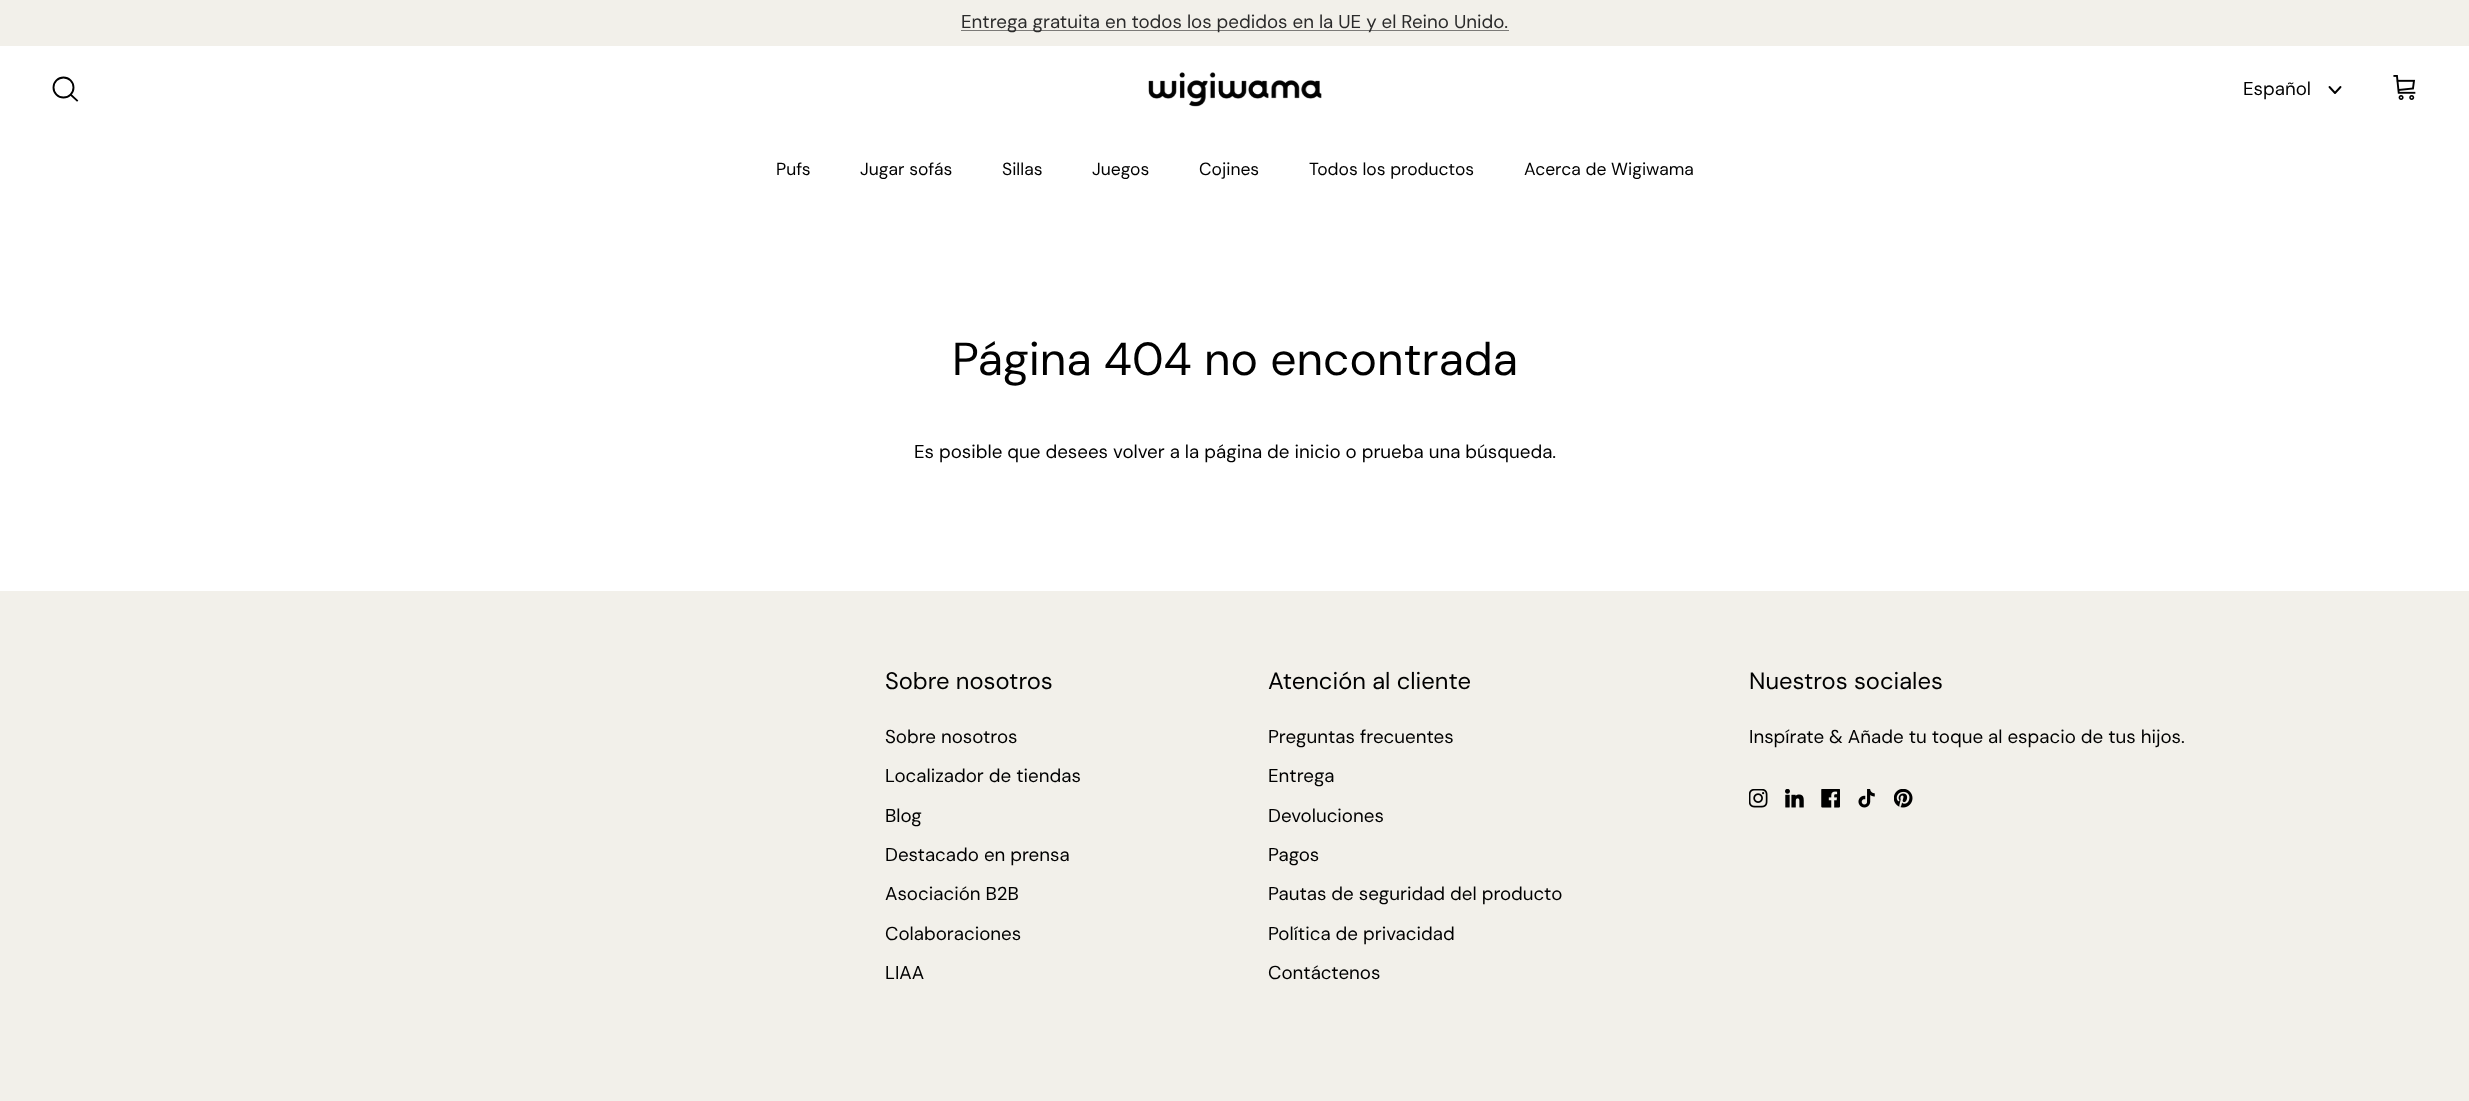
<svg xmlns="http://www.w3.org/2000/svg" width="2469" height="1101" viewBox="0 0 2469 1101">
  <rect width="100%" height="100%" fill="rgb(255,255,255)"/>
  <rect x="0" y="0" width="2469" height="46" fill="rgb(242,240,234)"/>
  <rect x="961" y="30" width="548" height="1" fill="rgb(123,122,119)"/>
  <text x="961" y="28" font-family="DM Sans" font-size="18.75" fill="rgb(43,43,43)">Entrega gratuita en todos los pedidos en la UE y el Reino Unido.</text>
  <circle cx="63.5" cy="87.5" r="10" fill="none" stroke="rgb(0,0,0)" stroke-width="1.9"/>
  <path d="M71 95L77 100.5" fill="none" stroke="rgb(0,0,0)" stroke-width="1.9" stroke-linecap="square"/>
  <image x="1148" y="72" width="174" height="35" href="pic1.png"/>
  <text x="2243" y="95" font-family="DM Sans" font-size="18.75" fill="rgb(0,0,0)">Español</text>
  <path d="M2329.5 87L2335 93L2340.5 87" fill="none" stroke="rgb(0,0,0)" stroke-width="1.9" stroke-linecap="round" stroke-linejoin="round"/>
  <image x="2393" y="75" width="23" height="25" href="pic2.png"/>
  <g font-family="DM Sans" font-size="17.5" fill="rgb(0,0,0)">
    <text x="776" y="175">Pufs</text>
    <text x="860" y="175">Jugar sofás</text>
    <text x="1002" y="175">Sillas</text>
    <text x="1092" y="175">Juegos</text>
    <text x="1199" y="175">Cojines</text>
    <text x="1309" y="175">Todos los productos</text>
    <text x="1524" y="175">Acerca de Wigiwama</text>
  </g>
  <text x="952" y="375" font-family="DM Sans" font-size="46.25" fill="rgb(0,0,0)">Página 404 no encontrada</text>
  <text x="914" y="458" font-family="DM Sans" font-size="18.75" fill="rgb(0,0,0)">Es posible que desees volver a la página de inicio o prueba una búsqueda.</text>
  <rect x="0" y="591" width="2469" height="510" fill="rgb(242,240,234)"/>
  <text x="885" y="689" font-family="DM Sans" font-size="23.75" fill="rgb(0,0,0)">Sobre nosotros</text>
  <g font-family="DM Sans" font-size="18.75" fill="rgb(0,0,0)">
    <text x="885" y="743">Sobre nosotros</text>
    <text x="885" y="782">Localizador de tiendas</text>
    <text x="885" y="822">Blog</text>
    <text x="885" y="861">Destacado en prensa</text>
    <text x="885" y="900">Asociación B2B</text>
    <text x="885" y="940">Colaboraciones</text>
    <text x="885" y="979">LIAA</text>
  </g>
  <text x="1268" y="689" font-family="DM Sans" font-size="23.75" fill="rgb(0,0,0)">Atención al cliente</text>
  <g font-family="DM Sans" font-size="18.75" fill="rgb(0,0,0)">
    <text x="1268" y="743">Preguntas frecuentes</text>
    <text x="1268" y="782">Entrega</text>
    <text x="1268" y="822">Devoluciones</text>
    <text x="1268" y="861">Pagos</text>
    <text x="1268" y="900">Pautas de seguridad del producto</text>
    <text x="1268" y="940">Política de privacidad</text>
    <text x="1268" y="979">Contáctenos</text>
  </g>
  <text x="1749" y="689" font-family="DM Sans" font-size="23.75" fill="rgb(0,0,0)">Nuestros sociales</text>
  <text x="1749" y="743" font-family="DM Sans" font-size="18.75" fill="rgb(0,0,0)">Inspírate &amp; Añade tu toque al espacio de tus hijos.</text>
  <image x="1749" y="789" width="19" height="19" href="pic3.png"/>
  <image x="1785" y="789" width="19" height="19" href="pic4.png"/>
  <image x="1821" y="789" width="19" height="19" href="pic5.png"/>
  <image x="1858" y="789" width="17" height="19" href="pic6.png"/>
  <image x="1894" y="789" width="19" height="19" href="pic7.png"/>
</svg>
